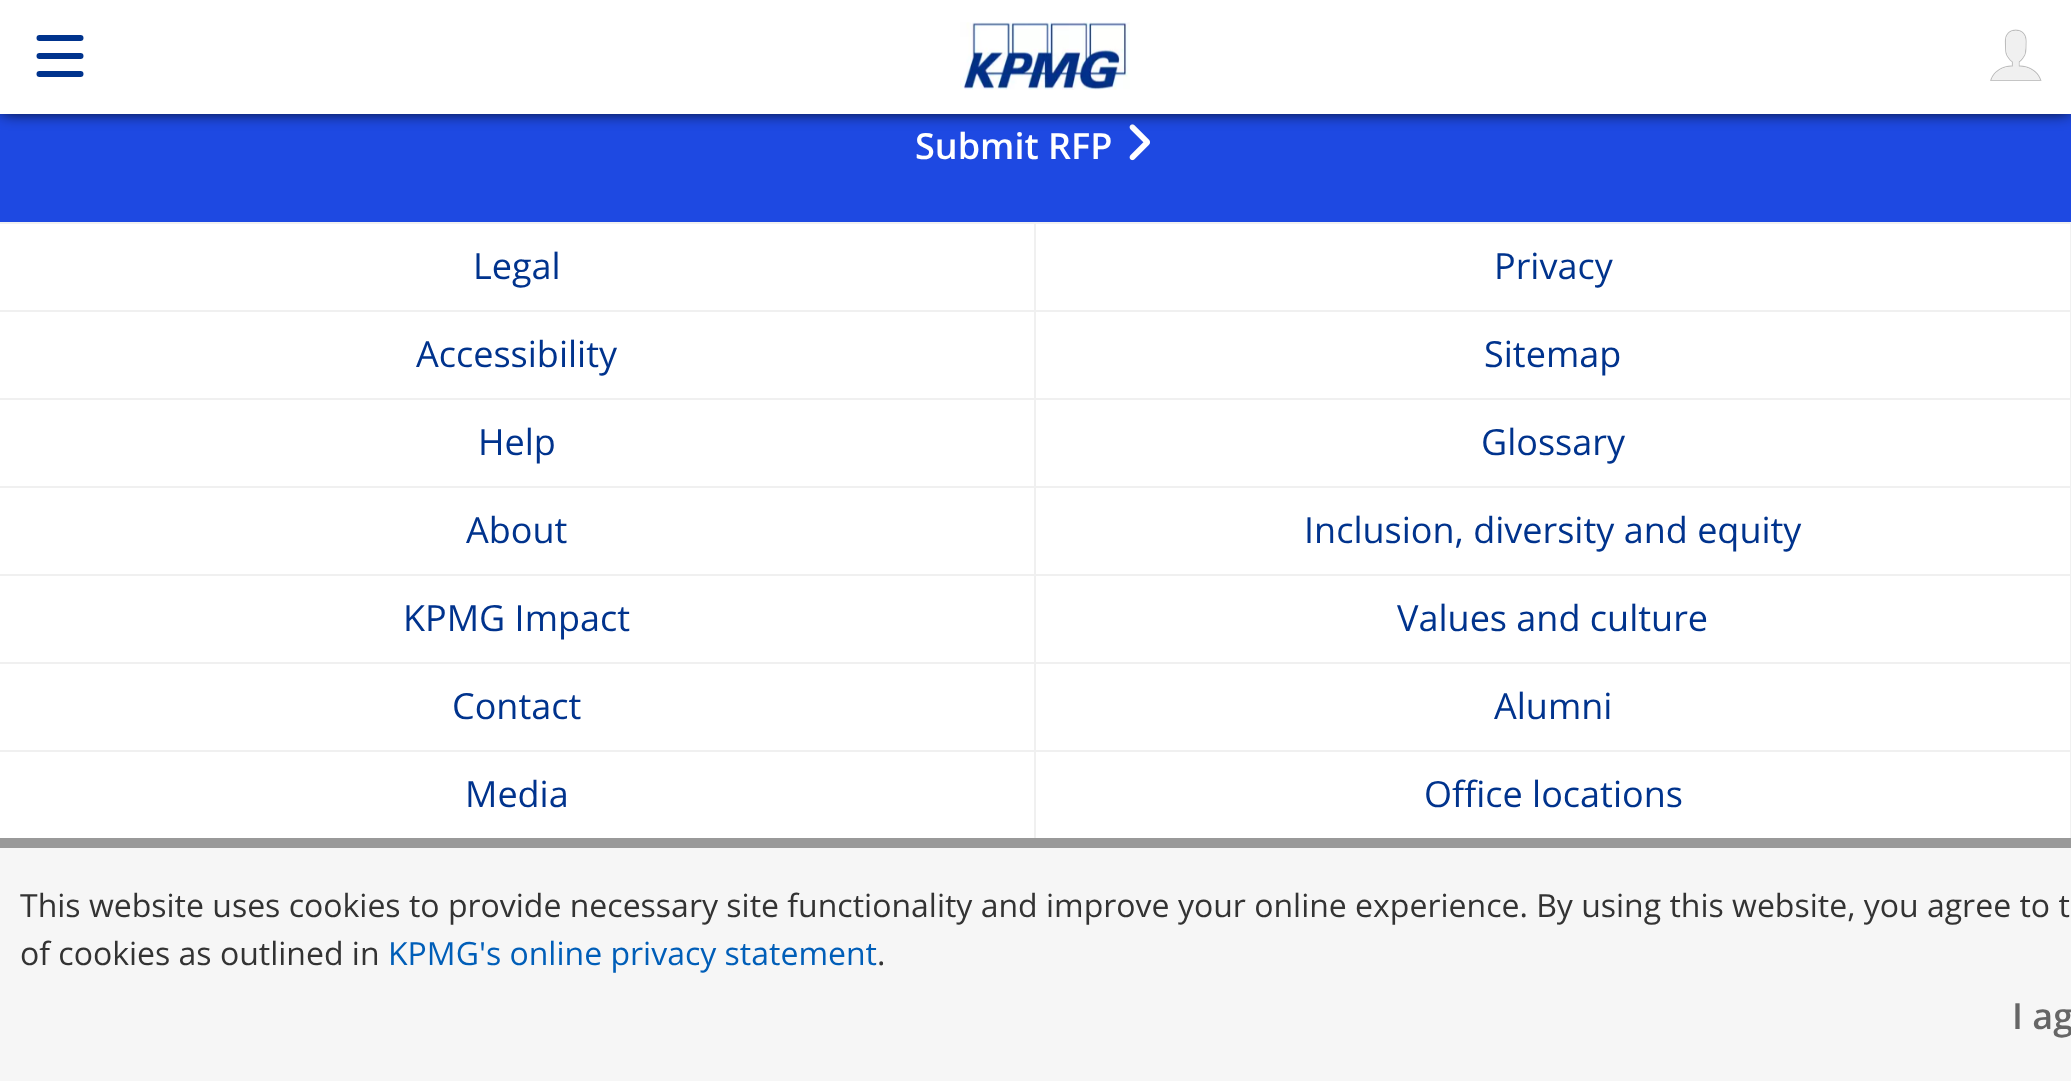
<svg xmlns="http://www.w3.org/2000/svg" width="2071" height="1081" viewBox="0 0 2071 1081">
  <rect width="100%" height="100%" fill="rgb(255,255,255)"/>
  <rect x="0" y="114" width="2071" height="108" fill="rgb(30,73,226)"/>
  <image x="1129" y="124" width="21" height="37" href="pic4.png"/>
  <rect x="0" y="-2" width="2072" height="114" rx="8" fill="rgb(0,0,0)" filter="blur(8px)"/>
  <rect x="0" y="0" width="2071" height="114" fill="rgb(255,255,255)"/>
  <path d="M39.5 38H80.5M39.5 56H80.5M39.5 74H80.5" fill="none" stroke="rgb(0,51,141)" stroke-width="6" stroke-linecap="round"/>
  <image x="960" y="22" width="170" height="68" href="pic1.png"/>
  <image x="1990" y="29" width="52" height="52" href="pic2.png"/>
  <image x="1991" y="30" width="49" height="50" href="pic3.png"/>
  <text x="915" y="159" font-family="Open Sans" font-size="36" font-weight="600" fill="rgb(255,255,255)">Submit RFP</text>
  <rect x="0" y="222" width="2071" height="2" fill="rgb(240,240,240)"/>
  <rect x="1034" y="224" width="2" height="616" fill="rgb(240,240,240)"/>
  <rect x="0" y="310" width="1036" height="2" fill="rgb(240,240,240)"/>
  <text x="473" y="279" font-family="Open Sans" font-size="36" fill="rgb(0,51,141)">Legal</text>
  <rect x="2070" y="224" width="1" height="616" fill="rgb(240,240,240)"/>
  <rect x="1036" y="310" width="1035" height="2" fill="rgb(240,240,240)"/>
  <text x="1494" y="279" font-family="Open Sans" font-size="36" fill="rgb(0,51,141)">Privacy</text>
  <rect x="0" y="398" width="2071" height="2" fill="rgb(240,240,240)"/>
  <g font-family="Open Sans" font-size="36" fill="rgb(0,51,141)">
    <text x="416" y="367">Accessibility</text>
    <text x="1484" y="367">Sitemap</text>
  </g>
  <rect x="0" y="486" width="2071" height="2" fill="rgb(240,240,240)"/>
  <g font-family="Open Sans" font-size="36" fill="rgb(0,51,141)">
    <text x="478" y="455">Help</text>
    <text x="1481" y="455">Glossary</text>
  </g>
  <rect x="0" y="574" width="2071" height="2" fill="rgb(240,240,240)"/>
  <g font-family="Open Sans" font-size="36" fill="rgb(0,51,141)">
    <text x="466" y="543">About</text>
    <text x="1304" y="543">Inclusion, diversity and equity</text>
  </g>
  <rect x="0" y="662" width="2071" height="2" fill="rgb(240,240,240)"/>
  <g font-family="Open Sans" font-size="36" fill="rgb(0,51,141)">
    <text x="403" y="631">KPMG Impact</text>
    <text x="1397" y="631">Values and culture</text>
  </g>
  <rect x="0" y="750" width="2071" height="2" fill="rgb(240,240,240)"/>
  <g font-family="Open Sans" font-size="36" fill="rgb(0,51,141)">
    <text x="452" y="719">Contact</text>
    <text x="1494" y="719">Alumni</text>
    <text x="465" y="807">Media</text>
    <text x="1424" y="807">Office locations</text>
  </g>
  <rect x="0" y="848" width="2071" height="233" fill="rgb(246,246,246)"/>
  <rect x="0" y="838" width="2071" height="10" fill="rgb(153,153,153)"/>
  <g font-family="Open Sans" font-size="32" fill="rgb(51,51,51)">
    <text>
      <tspan x="20" y="917">This website uses cookies to provide necessary site functionality and improve your online experience. By using this website, you agree to t</tspan>
      <tspan x="20" y="965">of cookies as outlined in</tspan>
    </text>
  </g>
  <text x="388" y="965" font-family="Open Sans" font-size="32" fill="rgb(0,94,184)">KPMG's online privacy statement</text>
  <text x="877" y="965" font-family="Open Sans" font-size="32" fill="rgb(51,51,51)">.</text>
  <text x="2012" y="1029" font-family="Open Sans" font-size="36" font-weight="600" fill="rgb(102,102,102)">I ag</text>
</svg>
